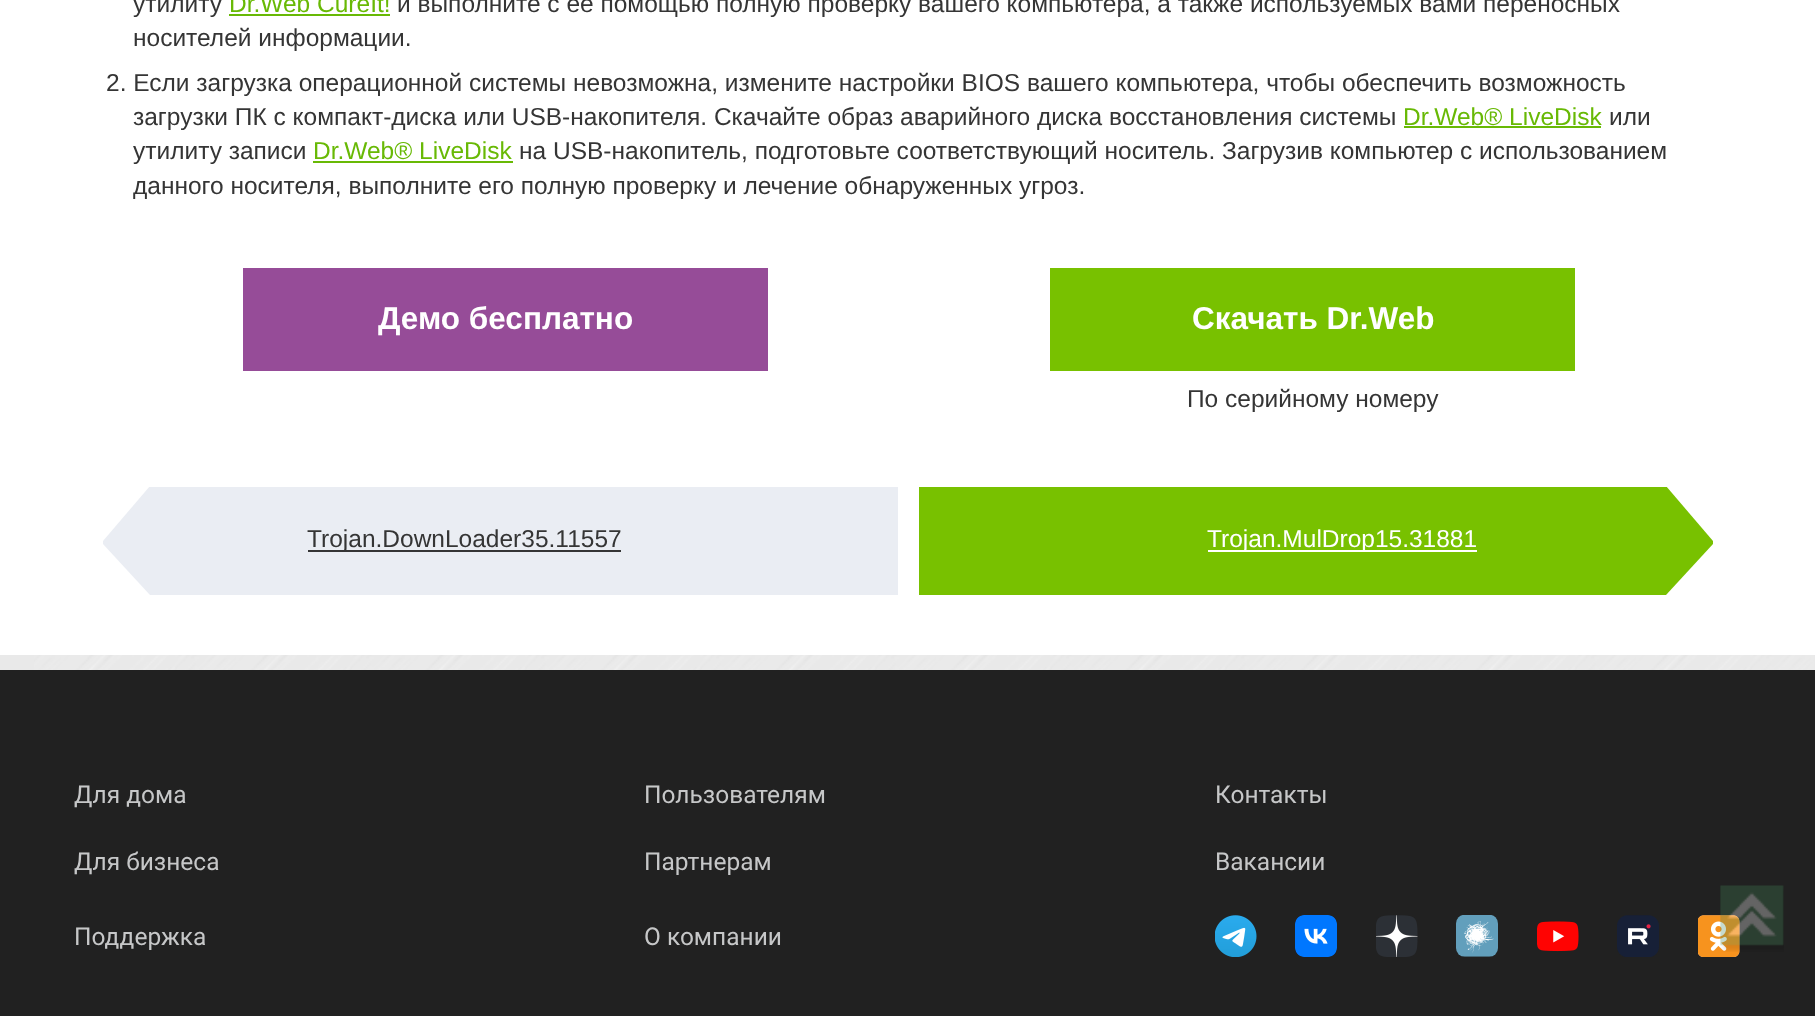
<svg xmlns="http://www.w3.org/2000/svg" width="1815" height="1016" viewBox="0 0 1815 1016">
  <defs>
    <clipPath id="clip1"><rect x="103" y="487" width="795" height="108"/></clipPath>
    <clipPath id="clip2"><rect x="919" y="487" width="794" height="108"/></clipPath>
  </defs>
  <rect width="100%" height="100%" fill="rgb(233,233,233)"/>
  <image x="34" y="655" width="1780" height="15" href="pic1.png"/>
  <rect x="0" y="0" width="1815" height="655" fill="rgb(255,255,255)"/>
  <text x="133" y="12" font-family="Liberation Sans" font-size="24.5" fill="rgb(53,53,53)">утилиту</text>
  <text x="229" y="12" font-family="Liberation Sans" font-size="24.5" fill="rgb(104,185,5)">Dr.Web CureIt!</text>
  <rect x="229" y="14" width="161" height="2" fill="rgb(104,185,5)"/>
  <g font-family="Liberation Sans" font-size="24.5" fill="rgb(53,53,53)">
    <text x="397" y="12">и выполните с ее помощью полную проверку вашего компьютера, а также используемых вами переносных</text>
    <text x="133" y="46">носителей информации.</text>
    <text x="106" y="91">2. Если загрузка операционной системы невозможна, измените настройки BIOS вашего компьютера, чтобы обеспечить возможность</text>
    <text x="133" y="125">загрузки ПК с компакт-диска или USB-накопителя. Скачайте образ аварийного диска восстановления системы</text>
  </g>
  <text x="1403" y="125" font-family="Liberation Sans" font-size="24.5" fill="rgb(104,185,5)">Dr.Web® LiveDisk</text>
  <rect x="1404" y="126" width="197" height="2" fill="rgb(104,185,5)"/>
  <g font-family="Liberation Sans" font-size="24.5" fill="rgb(53,53,53)">
    <text x="1609" y="125">или</text>
    <text x="133" y="159">утилиту записи</text>
  </g>
  <text x="313" y="159" font-family="Liberation Sans" font-size="24.5" fill="rgb(104,185,5)">Dr.Web® LiveDisk</text>
  <rect x="313" y="161" width="200" height="2" fill="rgb(104,185,5)"/>
  <g font-family="Liberation Sans" font-size="24.5" fill="rgb(53,53,53)">
    <text x="519" y="159">на USB-накопитель, подготовьте соответствующий носитель. Загрузив компьютер с использованием</text>
    <text x="133" y="194">данного носителя, выполните его полную проверку и лечение обнаруженных угроз.</text>
  </g>
  <rect x="243" y="268" width="525" height="103" fill="rgb(150,76,152)"/>
  <text x="378" y="329" font-family="Liberation Sans" font-size="31.5" font-weight="bold" fill="rgb(255,255,255)">Демо бесплатно</text>
  <rect x="1050" y="268" width="525" height="103" fill="rgb(120,193,0)"/>
  <text x="1192" y="329" font-family="Liberation Sans" font-size="31.5" font-weight="bold" fill="rgb(255,255,255)">Скачать Dr.Web</text>
  <text x="1187" y="407" font-family="Liberation Sans" font-size="24.5" fill="rgb(53,53,53)">По серийному номеру</text>
  <rect x="103" y="487" width="795" height="108" fill="rgb(234,237,243)"/>
  <g clip-path="url(#clip1)">
    <path d="M103 486H150L103 541Z" fill="rgb(255,255,255)"/>
  </g>
  <rect x="308" y="550" width="313" height="2" fill="rgb(53,53,53)"/>
  <text x="307" y="547" font-family="Liberation Sans" font-size="24.5" fill="rgb(53,53,53)">Trojan.DownLoader35.11557</text>
  <path d="M103 595V544L150 595Z" fill="rgb(255,255,255)"/>
  <rect x="919" y="487" width="794" height="108" fill="rgb(120,193,0)"/>
  <rect x="1208" y="550" width="269" height="2" fill="rgb(255,255,255)"/>
  <text x="1207" y="547" font-family="Liberation Sans" font-size="24.5" fill="rgb(255,255,255)">Trojan.MulDrop15.31881</text>
  <g clip-path="url(#clip2)">
    <path d="M1713 486V541L1666 486Z" fill="rgb(255,255,255)"/>
  </g>
  <path d="M1713 595H1666L1713 544Z" fill="rgb(255,255,255)"/>
  <rect x="0" y="670" width="1815" height="346" fill="rgb(33,33,33)"/>
  <g font-family="Roboto" font-size="24.5" fill="rgb(198,199,200)">
    <text x="74" y="803">Для дома</text>
    <text x="644" y="803">Пользователям</text>
    <text x="1215" y="803">Контакты</text>
    <text x="74" y="870">Для бизнеса</text>
    <text x="644" y="870">Партнерам</text>
    <text x="1215" y="870">Вакансии</text>
    <text x="74" y="945">Поддержка</text>
    <text x="644" y="945">О компании</text>
  </g>
  <image x="1215" y="915" width="42" height="42" href="pic2.png"/>
  <image x="1295" y="915" width="42" height="42" href="pic3.png"/>
  <image x="1376" y="915" width="42" height="42" href="pic4.png"/>
  <image x="1456" y="915" width="42" height="42" href="pic5.png"/>
  <image x="1537" y="921" width="42" height="31" href="pic6.png"/>
  <image x="1617" y="915" width="42" height="42" href="pic7.png"/>
  <image x="1698" y="915" width="42" height="42" href="pic8.png"/>
  <image x="1720" y="885" width="64" height="67" href="pic9.png"/>
</svg>
